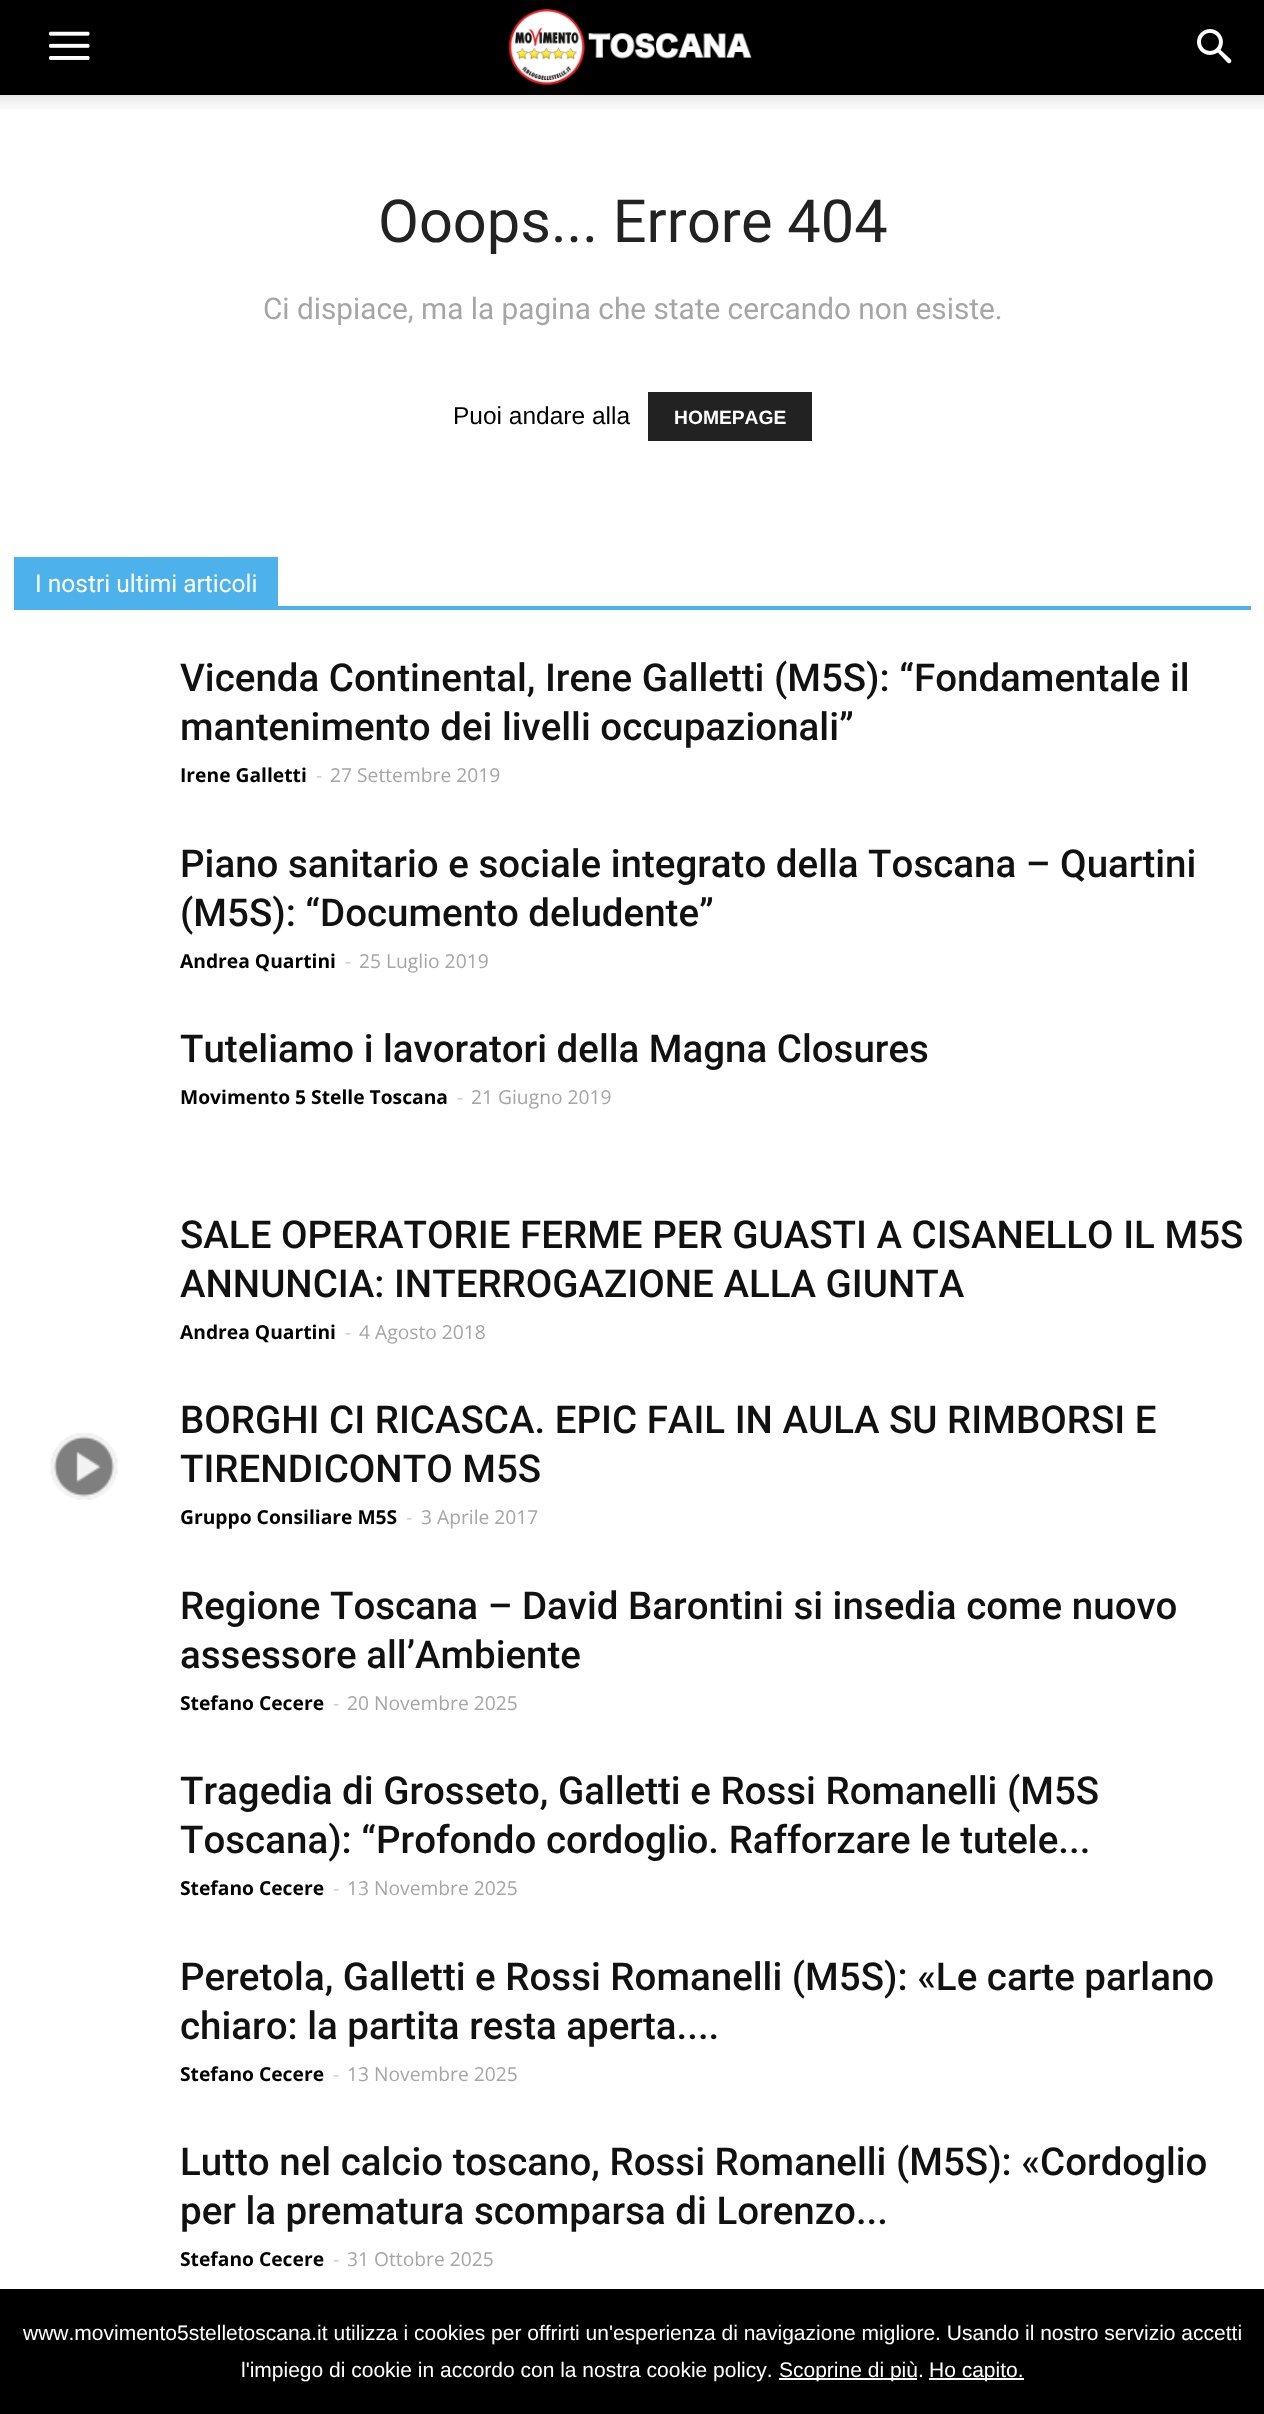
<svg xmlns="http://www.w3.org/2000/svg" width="1264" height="2414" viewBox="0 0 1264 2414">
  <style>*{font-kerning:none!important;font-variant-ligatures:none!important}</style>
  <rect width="100%" height="100%" fill="rgb(255,255,255)"/>
  <rect x="0" y="0" width="1264" height="95" fill="rgb(0,0,0)"/>
  <image x="49" y="31" width="41" height="29" href="pic1.png"/>
  <image x="508" y="9" width="244" height="76" href="pic2.png"/>
  <image x="1197" y="29" width="35" height="35" href="pic3.png"/>
  <image x="0" y="95" width="1264" height="14" href="pic4.png"/>
  <text x="378" y="242" font-family="Roboto" font-size="59.5" fill="rgb(34,34,34)">Ooops... Errore 404</text>
  <text x="263" y="319" font-family="Roboto" font-size="29.75" fill="rgb(166,166,166)">Ci dispiace, ma la pagina che state cercando non esiste.</text>
  <text x="453" y="424" font-family="Liberation Sans" font-size="24.5" fill="rgb(0,0,0)">Puoi andare alla</text>
  <rect x="648" y="392" width="164" height="49" fill="rgb(34,34,34)"/>
  <text x="674" y="424" font-family="Liberation Sans" font-size="19.25" font-weight="bold" fill="rgb(255,255,255)">HOMEPAGE</text>
  <rect x="14" y="606" width="1237" height="4" fill="rgb(77,178,236)"/>
  <rect x="14" y="557" width="264" height="49" fill="rgb(77,178,236)"/>
  <text x="35" y="592" font-family="Roboto" font-size="24.5" fill="rgb(255,255,255)">I nostri ultimi articoli</text>
  <g font-family="Roboto" font-size="38.5" font-weight="500" fill="rgb(17,17,17)">
    <text>
      <tspan x="180" y="691">Vicenda Continental, Irene Galletti (M5S): “Fondamentale il</tspan>
      <tspan x="180" y="740">mantenimento dei livelli occupazionali”</tspan>
    </text>
  </g>
  <text x="180" y="782" font-family="Open Sans" font-size="19.25" font-weight="bold" fill="rgb(0,0,0)">Irene Galletti</text>
  <text x="316" y="782" font-family="Open Sans" font-size="19.25" fill="rgb(204,204,204)">-</text>
  <text x="330" y="782" font-family="Open Sans" font-size="19.25" fill="rgb(166,166,166)">27 Settembre 2019</text>
  <g font-family="Roboto" font-size="38.5" font-weight="500" fill="rgb(17,17,17)">
    <text>
      <tspan x="180" y="877">Piano sanitario e sociale integrato della Toscana – Quartini</tspan>
      <tspan x="180" y="926">(M5S): “Documento deludente”</tspan>
    </text>
  </g>
  <text x="180" y="968" font-family="Open Sans" font-size="19.25" font-weight="bold" fill="rgb(0,0,0)">Andrea Quartini</text>
  <text x="345" y="968" font-family="Open Sans" font-size="19.25" fill="rgb(204,204,204)">-</text>
  <text x="359" y="968" font-family="Open Sans" font-size="19.25" fill="rgb(166,166,166)">25 Luglio 2019</text>
  <text x="180" y="1062" font-family="Roboto" font-size="38.5" font-weight="500" fill="rgb(17,17,17)">Tuteliamo i lavoratori della Magna Closures</text>
  <text x="180" y="1104" font-family="Open Sans" font-size="19.25" font-weight="bold" fill="rgb(0,0,0)">Movimento 5 Stelle Toscana</text>
  <text x="457" y="1104" font-family="Open Sans" font-size="19.25" fill="rgb(204,204,204)">-</text>
  <text x="471" y="1104" font-family="Open Sans" font-size="19.25" fill="rgb(166,166,166)">21 Giugno 2019</text>
  <g font-family="Roboto" font-size="38.5" font-weight="500" fill="rgb(17,17,17)">
    <text>
      <tspan x="180" y="1248">SALE OPERATORIE FERME PER GUASTI A CISANELLO IL M5S</tspan>
      <tspan x="180" y="1297">ANNUNCIA: INTERROGAZIONE ALLA GIUNTA</tspan>
    </text>
  </g>
  <text x="180" y="1339" font-family="Open Sans" font-size="19.25" font-weight="bold" fill="rgb(0,0,0)">Andrea Quartini</text>
  <text x="345" y="1339" font-family="Open Sans" font-size="19.25" fill="rgb(204,204,204)">-</text>
  <text x="359" y="1339" font-family="Open Sans" font-size="19.25" fill="rgb(166,166,166)">4 Agosto 2018</text>
  <image x="50" y="1433" width="68" height="67" href="pic5.png"/>
  <g font-family="Roboto" font-size="38.5" font-weight="500" fill="rgb(17,17,17)">
    <text>
      <tspan x="180" y="1433">BORGHI CI RICASCA. EPIC FAIL IN AULA SU RIMBORSI E</tspan>
      <tspan x="180" y="1482">TIRENDICONTO M5S</tspan>
    </text>
  </g>
  <text x="180" y="1524" font-family="Open Sans" font-size="19.25" font-weight="bold" fill="rgb(0,0,0)">Gruppo Consiliare M5S</text>
  <text x="406" y="1524" font-family="Open Sans" font-size="19.25" fill="rgb(204,204,204)">-</text>
  <text x="421" y="1524" font-family="Open Sans" font-size="19.25" fill="rgb(166,166,166)">3 Aprile 2017</text>
  <g font-family="Roboto" font-size="38.5" font-weight="500" fill="rgb(17,17,17)">
    <text>
      <tspan x="180" y="1619">Regione Toscana – David Barontini si insedia come nuovo</tspan>
      <tspan x="180" y="1668">assessore all’Ambiente</tspan>
    </text>
  </g>
  <text x="180" y="1710" font-family="Open Sans" font-size="19.25" font-weight="bold" fill="rgb(0,0,0)">Stefano Cecere</text>
  <text x="333" y="1710" font-family="Open Sans" font-size="19.25" fill="rgb(204,204,204)">-</text>
  <text x="347" y="1710" font-family="Open Sans" font-size="19.25" fill="rgb(166,166,166)">20 Novembre 2025</text>
  <g font-family="Roboto" font-size="38.5" font-weight="500" fill="rgb(17,17,17)">
    <text>
      <tspan x="180" y="1804">Tragedia di Grosseto, Galletti e Rossi Romanelli (M5S</tspan>
      <tspan x="180" y="1853">Toscana): “Profondo cordoglio. Rafforzare le tutele...</tspan>
    </text>
  </g>
  <text x="180" y="1895" font-family="Open Sans" font-size="19.25" font-weight="bold" fill="rgb(0,0,0)">Stefano Cecere</text>
  <text x="333" y="1895" font-family="Open Sans" font-size="19.25" fill="rgb(204,204,204)">-</text>
  <text x="347" y="1895" font-family="Open Sans" font-size="19.25" fill="rgb(166,166,166)">13 Novembre 2025</text>
  <g font-family="Roboto" font-size="38.5" font-weight="500" fill="rgb(17,17,17)">
    <text>
      <tspan x="180" y="1990">Peretola, Galletti e Rossi Romanelli (M5S): «Le carte parlano</tspan>
      <tspan x="180" y="2039">chiaro: la partita resta aperta....</tspan>
    </text>
  </g>
  <text x="180" y="2081" font-family="Open Sans" font-size="19.25" font-weight="bold" fill="rgb(0,0,0)">Stefano Cecere</text>
  <text x="333" y="2081" font-family="Open Sans" font-size="19.25" fill="rgb(204,204,204)">-</text>
  <text x="347" y="2081" font-family="Open Sans" font-size="19.25" fill="rgb(166,166,166)">13 Novembre 2025</text>
  <g font-family="Roboto" font-size="38.5" font-weight="500" fill="rgb(17,17,17)">
    <text>
      <tspan x="180" y="2175">Lutto nel calcio toscano, Rossi Romanelli (M5S): «Cordoglio</tspan>
      <tspan x="180" y="2224">per la prematura scomparsa di Lorenzo...</tspan>
    </text>
  </g>
  <text x="180" y="2266" font-family="Open Sans" font-size="19.25" font-weight="bold" fill="rgb(0,0,0)">Stefano Cecere</text>
  <text x="333" y="2266" font-family="Open Sans" font-size="19.25" fill="rgb(204,204,204)">-</text>
  <text x="347" y="2266" font-family="Open Sans" font-size="19.25" fill="rgb(166,166,166)">31 Ottobre 2025</text>
  <rect x="0" y="2289" width="1264" height="125" fill="rgb(0,0,0)"/>
  <g font-family="Liberation Sans" font-size="21" fill="rgb(255,255,255)">
    <text x="23" y="2340">www.movimento5stelletoscana.it utilizza i cookies per offrirti un'esperienza di navigazione migliore. Usando il nostro servizio accetti</text>
    <text x="241" y="2377">l'impiego di cookie in accordo con la nostra cookie policy.</text>
  </g>
  <rect x="779" y="2378" width="138" height="2" fill="rgb(255,255,255)"/>
  <text x="779" y="2377" font-family="Liberation Sans" font-size="21" fill="rgb(255,255,255)">Scoprine di più.</text>
  <rect x="929" y="2378" width="95" height="2" fill="rgb(255,255,255)"/>
  <text x="929" y="2377" font-family="Liberation Sans" font-size="21" fill="rgb(255,255,255)">Ho capito.</text>
</svg>
